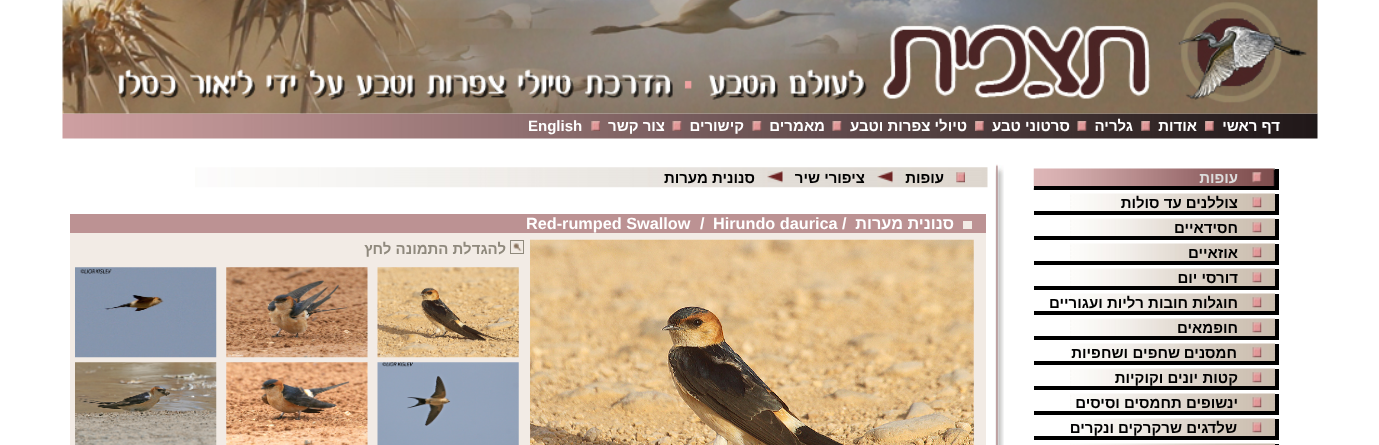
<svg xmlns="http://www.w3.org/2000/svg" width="1379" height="445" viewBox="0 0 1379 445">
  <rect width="100%" height="100%" fill="rgb(255,255,255)"/>
  <image x="62" y="113" width="1256" height="26" href="pic2.png"/>
  <image x="62" y="0" width="1256" height="114" href="pic1.png"/>
  <text x="1280" y="131" font-family="Liberation Sans" font-size="15" font-weight="bold" direction="rtl" fill="rgb(255,255,255)">דף ראשי</text>
  <image x="1205" y="121" width="9" height="10" href="pic3.png"/>
  <text x="1197" y="131" font-family="Liberation Sans" font-size="15" font-weight="bold" direction="rtl" fill="rgb(255,255,255)">אודות</text>
  <image x="1141" y="121" width="9" height="10" href="pic4.png"/>
  <text x="1133" y="131" font-family="Liberation Sans" font-size="15" font-weight="bold" direction="rtl" fill="rgb(255,255,255)">גלריה</text>
  <image x="1077" y="121" width="10" height="10" href="pic5.png"/>
  <text x="1070" y="131" font-family="Liberation Sans" font-size="15" font-weight="bold" direction="rtl" fill="rgb(255,255,255)">סרטוני טבע</text>
  <image x="975" y="121" width="9" height="10" href="pic6.png"/>
  <text x="967" y="131" font-family="Liberation Sans" font-size="15" font-weight="bold" direction="rtl" fill="rgb(255,255,255)">טיולי צפרות וטבע</text>
  <image x="832" y="121" width="10" height="10" href="pic7.png"/>
  <text x="825" y="131" font-family="Liberation Sans" font-size="15" font-weight="bold" direction="rtl" fill="rgb(255,255,255)">מאמרים</text>
  <image x="752" y="121" width="10" height="10" href="pic8.png"/>
  <text x="744" y="131" font-family="Liberation Sans" font-size="15" font-weight="bold" direction="rtl" fill="rgb(255,255,255)">קישורים</text>
  <image x="672" y="121" width="10" height="10" href="pic9.png"/>
  <text x="665" y="131" font-family="Liberation Sans" font-size="15" font-weight="bold" direction="rtl" fill="rgb(255,255,255)">צור קשר</text>
  <image x="591" y="121" width="9" height="10" href="pic10.png"/>
  <text x="528" y="131" font-family="Liberation Sans" font-size="15" font-weight="bold" fill="rgb(255,255,255)">English</text>
  <image x="1033" y="168" width="242" height="22" href="pic11.png"/>
  <rect x="1275" y="169" width="4" height="21" fill="rgb(0,0,0)"/>
  <rect x="1034" y="186" width="245" height="4" fill="rgb(0,0,0)"/>
  <image x="1252" y="172" width="10" height="11" href="pic12.png"/>
  <text x="1238" y="183" font-family="Liberation Sans" font-size="15" font-weight="bold" direction="rtl" fill="rgb(220,220,220)">עופות</text>
  <image x="1070" y="193" width="205" height="18" href="pic13.png"/>
  <rect x="1275" y="194" width="4" height="21" fill="rgb(0,0,0)"/>
  <rect x="1034" y="211" width="245" height="4" fill="rgb(0,0,0)"/>
  <image x="1252" y="197" width="10" height="11" href="pic14.png"/>
  <text x="1238" y="208" font-family="Liberation Sans" font-size="15" font-weight="bold" direction="rtl" fill="rgb(0,0,0)">צוללנים עד סולות</text>
  <image x="1070" y="218" width="205" height="18" href="pic15.png"/>
  <rect x="1275" y="219" width="4" height="21" fill="rgb(0,0,0)"/>
  <rect x="1034" y="236" width="245" height="4" fill="rgb(0,0,0)"/>
  <image x="1252" y="222" width="10" height="11" href="pic16.png"/>
  <text x="1238" y="233" font-family="Liberation Sans" font-size="15" font-weight="bold" direction="rtl" fill="rgb(0,0,0)">חסידאיים</text>
  <image x="1070" y="243" width="205" height="18" href="pic17.png"/>
  <rect x="1275" y="244" width="4" height="21" fill="rgb(0,0,0)"/>
  <rect x="1034" y="261" width="245" height="4" fill="rgb(0,0,0)"/>
  <image x="1252" y="247" width="10" height="11" href="pic16.png"/>
  <text x="1238" y="258" font-family="Liberation Sans" font-size="15" font-weight="bold" direction="rtl" fill="rgb(0,0,0)">אוזאיים</text>
  <image x="1070" y="268" width="205" height="18" href="pic18.png"/>
  <rect x="1275" y="269" width="4" height="21" fill="rgb(0,0,0)"/>
  <rect x="1034" y="286" width="245" height="4" fill="rgb(0,0,0)"/>
  <image x="1252" y="272" width="10" height="11" href="pic14.png"/>
  <text x="1238" y="283" font-family="Liberation Sans" font-size="15" font-weight="bold" direction="rtl" fill="rgb(0,0,0)">דורסי יום</text>
  <image x="1070" y="293" width="205" height="18" href="pic19.png"/>
  <rect x="1275" y="294" width="4" height="21" fill="rgb(0,0,0)"/>
  <rect x="1034" y="311" width="245" height="4" fill="rgb(0,0,0)"/>
  <image x="1252" y="297" width="10" height="11" href="pic14.png"/>
  <text x="1238" y="308" font-family="Liberation Sans" font-size="15" font-weight="bold" direction="rtl" fill="rgb(0,0,0)">חוגלות חובות רליות ועגוריים</text>
  <image x="1070" y="318" width="205" height="18" href="pic20.png"/>
  <rect x="1275" y="319" width="4" height="21" fill="rgb(0,0,0)"/>
  <rect x="1034" y="336" width="245" height="4" fill="rgb(0,0,0)"/>
  <image x="1252" y="322" width="10" height="11" href="pic14.png"/>
  <text x="1238" y="333" font-family="Liberation Sans" font-size="15" font-weight="bold" direction="rtl" fill="rgb(0,0,0)">חופמאים</text>
  <image x="1070" y="343" width="205" height="18" href="pic21.png"/>
  <rect x="1275" y="344" width="4" height="21" fill="rgb(0,0,0)"/>
  <rect x="1034" y="361" width="245" height="4" fill="rgb(0,0,0)"/>
  <image x="1252" y="347" width="10" height="11" href="pic16.png"/>
  <g font-family="Liberation Sans" font-size="15" font-weight="bold" direction="rtl" fill="rgb(0,0,0)">
    <text x="1237" y="358">חמסנים</text>
    <text x="1180" y="358">שחפים</text>
    <text x="1128" y="358">ושחפיות</text>
  </g>
  <image x="1070" y="368" width="205" height="18" href="pic22.png"/>
  <rect x="1275" y="369" width="4" height="21" fill="rgb(0,0,0)"/>
  <rect x="1034" y="386" width="245" height="4" fill="rgb(0,0,0)"/>
  <image x="1252" y="372" width="10" height="11" href="pic16.png"/>
  <g font-family="Liberation Sans" font-size="15" font-weight="bold" direction="rtl" fill="rgb(0,0,0)">
    <text x="1238" y="383">קטות</text>
    <text x="1198" y="383">יונים וקוקיות</text>
  </g>
  <image x="1070" y="393" width="205" height="18" href="pic23.png"/>
  <rect x="1275" y="394" width="4" height="21" fill="rgb(0,0,0)"/>
  <rect x="1034" y="411" width="245" height="4" fill="rgb(0,0,0)"/>
  <image x="1252" y="397" width="10" height="11" href="pic16.png"/>
  <text x="1238" y="408" font-family="Liberation Sans" font-size="15" font-weight="bold" direction="rtl" fill="rgb(0,0,0)">ינשופים תחמסים וסיסים</text>
  <image x="1070" y="418" width="205" height="18" href="pic24.png"/>
  <rect x="1275" y="419" width="4" height="21" fill="rgb(0,0,0)"/>
  <rect x="1034" y="436" width="245" height="4" fill="rgb(0,0,0)"/>
  <image x="1252" y="422" width="10" height="11" href="pic16.png"/>
  <g font-family="Liberation Sans" font-size="15" font-weight="bold" direction="rtl" fill="rgb(0,0,0)">
    <text x="1237" y="433">שלדגים שרקרקים</text>
    <text x="1114" y="433">ונקרים</text>
  </g>
  <image x="1070" y="443" width="205" height="2" href="pic25.png"/>
  <rect x="1275" y="444" width="4" height="1" fill="rgb(0,0,0)"/>
  <image x="995" y="164" width="9" height="281" href="pic26.png"/>
  <image x="195" y="167" width="793" height="21" href="pic27.png"/>
  <image x="956" y="172" width="9" height="11" href="pic28.png"/>
  <text x="944" y="183" font-family="Liberation Sans" font-size="15" font-weight="bold" direction="rtl" fill="rgb(0,0,0)">עופות</text>
  <image x="877" y="171" width="16" height="12" href="pic29.png"/>
  <text x="865" y="183" font-family="Liberation Sans" font-size="15" font-weight="bold" direction="rtl" fill="rgb(0,0,0)">ציפורי שיר</text>
  <image x="767" y="171" width="16" height="12" href="pic30.png"/>
  <text x="755" y="183" font-family="Liberation Sans" font-size="15" font-weight="bold" direction="rtl" fill="rgb(0,0,0)">סנונית מערות</text>
  <rect x="70" y="233" width="916" height="212" fill="rgb(242,235,229)"/>
  <rect x="70" y="214" width="916" height="19" fill="rgb(188,146,147)"/>
  <rect x="963" y="221" width="9" height="8" fill="rgb(242,235,229)"/>
  <text x="954" y="229" font-family="Liberation Sans" font-size="16.25" font-weight="bold" direction="rtl" fill="rgb(255,255,255)">סנונית מערות</text>
  <g font-family="Liberation Sans" font-size="16.25" font-weight="bold" fill="rgb(255,255,255)">
    <text x="713" y="229">Hirundo daurica /</text>
    <text x="700" y="229">/</text>
    <text x="526" y="229">Red-rumped Swallow</text>
  </g>
  <image x="530" y="239" width="444" height="206" href="pic31.png"/>
  <rect x="510.5" y="240.5" width="13" height="13" fill="none" stroke="rgb(143,137,125)"/>
  <text x="506" y="254" font-family="Liberation Sans" font-size="15" font-weight="bold" direction="rtl" fill="rgb(143,137,125)">להגדלת התמונה לחץ</text>
  <image x="513" y="243" width="9" height="9" href="pic32.png"/>
  <image x="377" y="267" width="142" height="91" href="pic33.png"/>
  <image x="226" y="267" width="142" height="91" href="pic34.png"/>
  <image x="75" y="267" width="142" height="91" href="pic35.png"/>
  <image x="377" y="362" width="142" height="83" href="pic36.png"/>
  <image x="226" y="362" width="142" height="83" href="pic37.png"/>
  <image x="75" y="362" width="142" height="83" href="pic38.png"/>
</svg>
